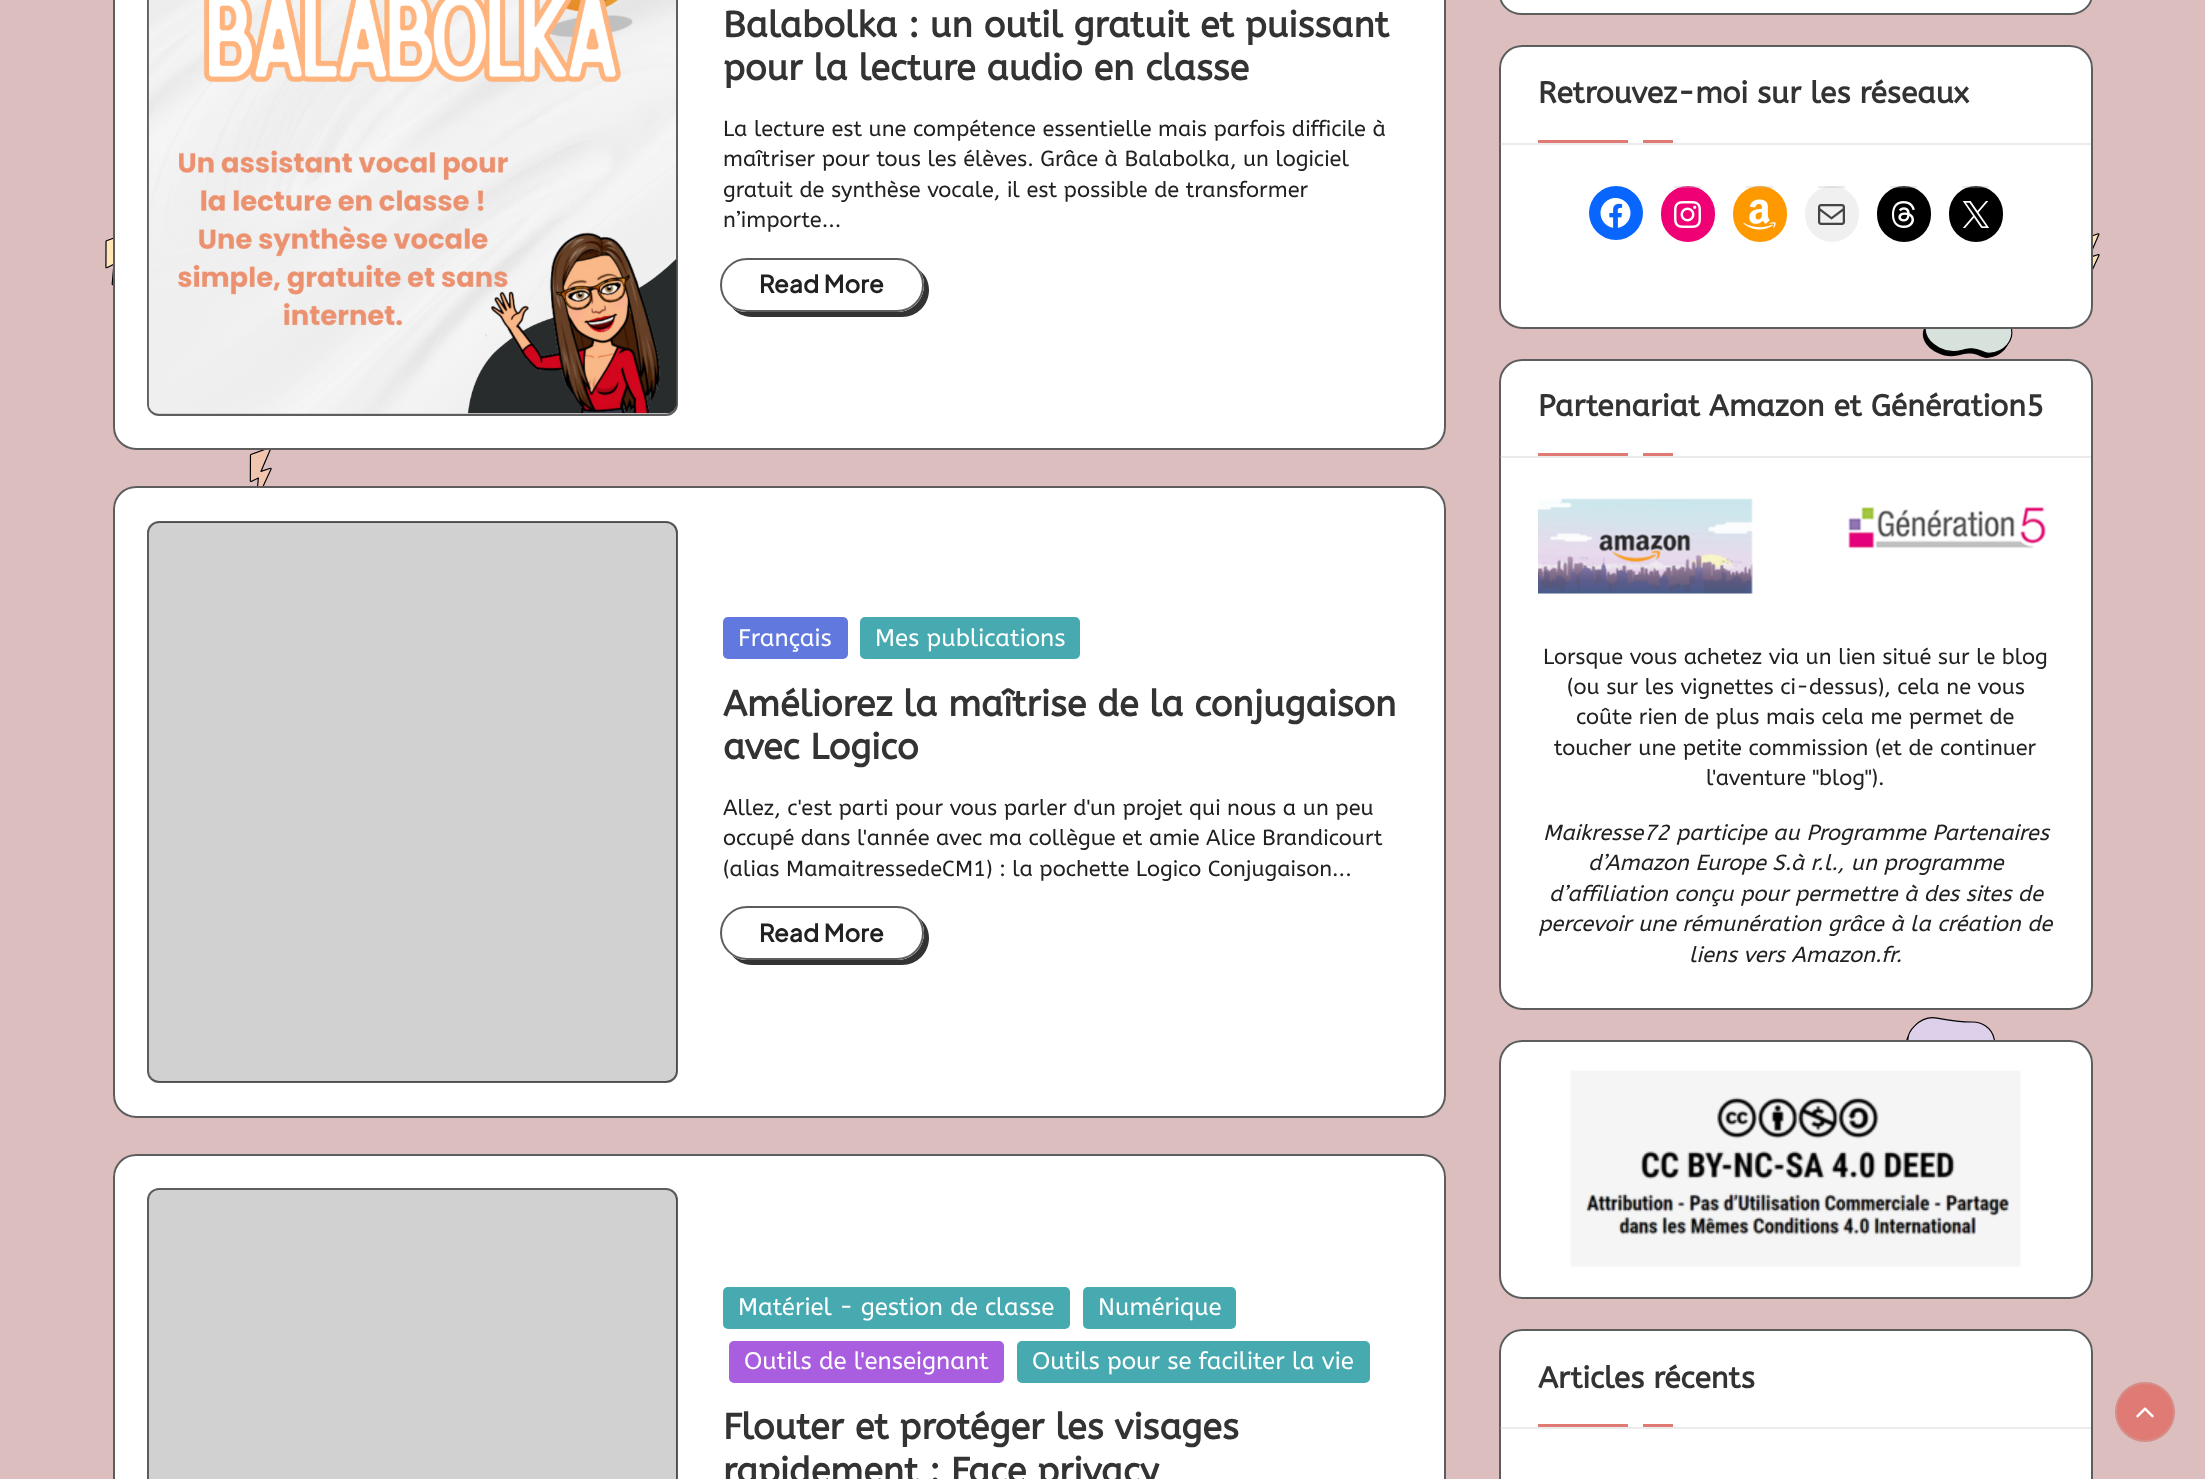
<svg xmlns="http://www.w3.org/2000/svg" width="2205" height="1479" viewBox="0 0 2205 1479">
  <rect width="100%" height="100%" fill="rgb(221,190,190)"/>
  <image x="105" y="233" width="1995" height="807" href="pic1.png"/>
  <rect x="113" y="-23" width="1333" height="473" rx="23" fill="rgb(255,255,255)"/>
  <rect x="114" y="-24" width="1331" height="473" rx="22" fill="none" stroke="rgba(39,39,39,0.75)" stroke-width="2"/>
  <rect x="148" y="-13" width="529" height="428" rx="11" fill="none" stroke="rgb(93,93,93)" stroke-width="2"/>
  <rect x="149" y="-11" width="528" height="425" rx="11" fill="rgba(0,0,0,0.18)"/>
  <image x="148" y="0" width="529" height="414" href="pic2.png"/>
  <g font-family="ABeeZee" font-size="36" font-weight="bold" fill="rgb(51,51,51)">
    <text>
      <tspan x="723" y="37">Balabolka : un outil gratuit et puissant</tspan>
      <tspan x="723" y="80">pour la lecture audio en classe</tspan>
    </text>
  </g>
  <g font-family="ABeeZee" font-size="21.75" fill="rgb(33,33,33)">
    <text>
      <tspan x="723" y="136">La lecture est une compétence essentielle mais parfois difficile à</tspan>
      <tspan x="723" y="166">maîtriser pour tous les élèves. Grâce à Balabolka, un logiciel</tspan>
      <tspan x="723" y="197">gratuit de synthèse vocale, il est possible de transformer</tspan>
      <tspan x="723" y="227">n’importe...</tspan>
    </text>
  </g>
  <path d="M731 306C736 313 743 317 752 317H902C917 317 929 305 929 290C929 281 925 274 918 269C922 273 924 279 924 285C924 300 912 312 897 312H747C741 312 735 310 731 306Z" fill="rgb(51,51,51)"/>
  <rect x="720" y="258" width="204" height="54" rx="27" fill="rgb(255,255,255)"/>
  <rect x="721" y="259" width="202" height="52" rx="26" fill="none" stroke="rgba(39,39,39,0.75)" stroke-width="2"/>
  <text x="759" y="293" font-family="Plus Jakarta Sans" font-size="24" font-weight="bold" letter-spacing="0.25" fill="rgb(33,33,33)">Read More</text>
  <rect x="113" y="486" width="1333" height="632" rx="23" fill="rgb(255,255,255)"/>
  <rect x="114" y="487" width="1331" height="630" rx="22" fill="none" stroke="rgba(39,39,39,0.75)" stroke-width="2"/>
  <rect x="148" y="522" width="529" height="560" rx="11" fill="none" stroke="rgb(93,93,93)" stroke-width="2"/>
  <rect x="149" y="522" width="528" height="560" rx="11" fill="rgba(0,0,0,0.18)"/>
  <rect x="723" y="617" width="125" height="42" rx="5" fill="rgb(97,120,223)"/>
  <text x="738" y="646" font-family="ABeeZee" font-size="24" fill="rgb(255,255,255)">Français</text>
  <rect x="860" y="617" width="220" height="42" rx="5" fill="rgb(72,170,177)"/>
  <text x="875" y="646" font-family="ABeeZee" font-size="24" fill="rgb(255,255,255)">Mes publications</text>
  <g font-family="ABeeZee" font-size="36" font-weight="bold" fill="rgb(51,51,51)">
    <text>
      <tspan x="723" y="716">Améliorez la maîtrise de la conjugaison</tspan>
      <tspan x="723" y="759">avec Logico</tspan>
    </text>
  </g>
  <g font-family="ABeeZee" font-size="21.75" fill="rgb(33,33,33)">
    <text>
      <tspan x="723" y="815">Allez, c'est parti pour vous parler d'un projet qui nous a un peu</tspan>
      <tspan x="723" y="845">occupé dans l'année avec ma collègue et amie Alice Brandicourt</tspan>
      <tspan x="723" y="876">(alias MamaitressedeCM1) : la pochette Logico Conjugaison...</tspan>
    </text>
  </g>
  <path d="M731 954C736 961 743 965 752 965H902C917 965 929 953 929 938C929 929 925 922 918 917C922 921 924 927 924 933C924 948 912 960 897 960H747C741 960 735 958 731 954Z" fill="rgb(51,51,51)"/>
  <rect x="720" y="906" width="204" height="54" rx="27" fill="rgb(255,255,255)"/>
  <rect x="721" y="907" width="202" height="52" rx="26" fill="none" stroke="rgba(39,39,39,0.75)" stroke-width="2"/>
  <text x="759" y="942" font-family="Plus Jakarta Sans" font-size="24" font-weight="bold" letter-spacing="0.25" fill="rgb(33,33,33)">Read More</text>
  <rect x="113" y="1154" width="1333" height="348" rx="23" fill="rgb(255,255,255)"/>
  <rect x="114" y="1155" width="1331" height="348" rx="22" fill="none" stroke="rgba(39,39,39,0.75)" stroke-width="2"/>
  <rect x="148" y="1189" width="529" height="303" rx="11" fill="none" stroke="rgb(93,93,93)" stroke-width="2"/>
  <rect x="149" y="1190" width="528" height="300" rx="11" fill="rgba(0,0,0,0.18)"/>
  <rect x="723" y="1287" width="347" height="42" rx="5" fill="rgb(72,170,177)"/>
  <text x="738" y="1315" font-family="ABeeZee" font-size="24" fill="rgb(255,255,255)">Matériel - gestion de classe</text>
  <rect x="1083" y="1287" width="153" height="42" rx="5" fill="rgb(72,170,177)"/>
  <text x="1098" y="1315" font-family="ABeeZee" font-size="24" fill="rgb(255,255,255)">Numérique</text>
  <rect x="729" y="1341" width="275" height="42" rx="5" fill="rgb(169,94,223)"/>
  <text x="744" y="1369" font-family="ABeeZee" font-size="24" fill="rgb(255,255,255)">Outils de l'enseignant</text>
  <rect x="1017" y="1341" width="353" height="42" rx="5" fill="rgb(72,170,177)"/>
  <text x="1032" y="1369" font-family="ABeeZee" font-size="24" fill="rgb(255,255,255)">Outils pour se faciliter la vie</text>
  <g font-family="ABeeZee" font-size="36" font-weight="bold" fill="rgb(51,51,51)">
    <text>
      <tspan x="723" y="1439">Flouter et protéger les visages</tspan>
      <tspan x="723" y="1483">rapidement : Face privacy</tspan>
    </text>
  </g>
  <rect x="1499" y="-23" width="594" height="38" rx="23" fill="rgb(255,255,255)"/>
  <rect x="1500" y="-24" width="592" height="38" rx="22" fill="none" stroke="rgba(39,39,39,0.75)" stroke-width="2"/>
  <rect x="1499" y="45" width="594" height="284" rx="23" fill="rgb(255,255,255)"/>
  <rect x="1500" y="46" width="592" height="282" rx="22" fill="none" stroke="rgba(39,39,39,0.75)" stroke-width="2"/>
  <rect x="1500" y="143" width="591" height="2" fill="rgba(190,190,190,0.3)"/>
  <text x="1538" y="103" font-family="ABeeZee" font-size="30" font-weight="bold" fill="rgb(51,51,51)">Retrouvez-moi sur les réseaux</text>
  <rect x="1538" y="140" width="90" height="3" fill="rgb(224,122,116)"/>
  <rect x="1643" y="140" width="30" height="3" fill="rgb(224,122,116)"/>
  <circle cx="1616" cy="213" r="27" fill="rgb(8,102,255)"/>
  <image x="1600" y="198" width="31" height="30" href="pic3.png"/>
  <rect x="1661" y="186" width="54" height="56" rx="27" fill="rgb(240,0,117)"/>
  <rect x="1674" y="186" width="27" height="2" fill="rgba(190,190,190,0.3)"/>
  <image x="1674" y="201" width="27" height="27" href="pic4.png"/>
  <rect x="1733" y="186" width="54" height="56" rx="27" fill="rgb(255,153,0)"/>
  <rect x="1746" y="186" width="27" height="2" fill="rgba(190,190,190,0.3)"/>
  <image x="1743" y="199" width="33" height="31" href="pic5.png"/>
  <rect x="1805" y="186" width="54" height="56" rx="27" fill="rgb(240,240,240)"/>
  <rect x="1818" y="186" width="27" height="2" fill="rgba(190,190,190,0.3)"/>
  <image x="1818" y="204" width="27" height="21" href="pic6.png"/>
  <rect x="1877" y="186" width="54" height="56" rx="27" fill="rgb(0,0,0)"/>
  <rect x="1890" y="186" width="27" height="2" fill="rgba(190,190,190,0.3)"/>
  <image x="1891" y="201" width="24" height="27" href="pic7.png"/>
  <rect x="1949" y="186" width="54" height="56" rx="27" fill="rgb(0,0,0)"/>
  <rect x="1962" y="186" width="27" height="2" fill="rgba(190,190,190,0.3)"/>
  <image x="1962" y="201" width="28" height="27" href="pic8.png"/>
  <rect x="1499" y="359" width="594" height="651" rx="23" fill="rgb(255,255,255)"/>
  <rect x="1500" y="360" width="592" height="649" rx="22" fill="none" stroke="rgba(39,39,39,0.75)" stroke-width="2"/>
  <rect x="1500" y="456" width="591" height="2" fill="rgba(190,190,190,0.3)"/>
  <text x="1538" y="416" font-family="ABeeZee" font-size="30" font-weight="bold" fill="rgb(51,51,51)">Partenariat Amazon et Génération5</text>
  <rect x="1538" y="453" width="90" height="3" fill="rgb(224,122,116)"/>
  <rect x="1643" y="453" width="30" height="3" fill="rgb(224,122,116)"/>
  <image x="1538" y="498" width="215" height="96" href="pic9.png"/>
  <image x="1848" y="506" width="198" height="43" href="pic10.png"/>
  <g font-family="ABeeZee" font-size="21.75" fill="rgb(33,33,33)">
    <text x="1543" y="664">Lorsque vous achetez via un lien situé sur le blog</text>
    <text x="1567" y="694">(ou sur les vignettes ci-dessus), cela ne vous</text>
    <text x="1576" y="724">coûte rien de plus mais cela me permet de</text>
    <text x="1554" y="755">toucher une petite commission (et de continuer</text>
    <text x="1706" y="785">l'aventure "blog").</text>
  </g>
  <g font-family="ABeeZee" font-size="21.75" font-style="italic" fill="rgb(33,33,33)">
    <text x="1543" y="840">Maikresse72 participe au Programme Partenaires</text>
    <text x="1588" y="870">d’Amazon Europe S.à r.l., un programme</text>
    <text x="1549" y="901">d’affiliation conçu pour permettre à des sites de</text>
    <text x="1538" y="931">percevoir une rémunération grâce à la création de</text>
    <text x="1689" y="962">liens vers Amazon.fr.</text>
  </g>
  <rect x="1499" y="1040" width="594" height="259" rx="23" fill="rgb(255,255,255)"/>
  <rect x="1500" y="1041" width="592" height="257" rx="22" fill="none" stroke="rgba(39,39,39,0.75)" stroke-width="2"/>
  <image x="1570" y="1070" width="451" height="197" href="pic11.png"/>
  <rect x="1499" y="1329" width="594" height="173" rx="23" fill="rgb(255,255,255)"/>
  <rect x="1500" y="1330" width="592" height="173" rx="22" fill="none" stroke="rgba(39,39,39,0.75)" stroke-width="2"/>
  <rect x="1500" y="1427" width="591" height="2" fill="rgba(190,190,190,0.3)"/>
  <text x="1538" y="1388" font-family="ABeeZee" font-size="30" font-weight="bold" fill="rgb(51,51,51)">Articles récents</text>
  <rect x="1538" y="1424" width="90" height="3" fill="rgb(224,122,116)"/>
  <rect x="1643" y="1424" width="30" height="3" fill="rgb(224,122,116)"/>
  <circle cx="2145" cy="1412" r="30" fill="rgb(224,122,116)"/>
  <circle cx="2145" cy="1412" r="29" fill="none" stroke="rgba(190,190,190,0.3)" stroke-width="2"/>
  <image x="2136" y="1407" width="18" height="11" href="pic12.png"/>
</svg>
